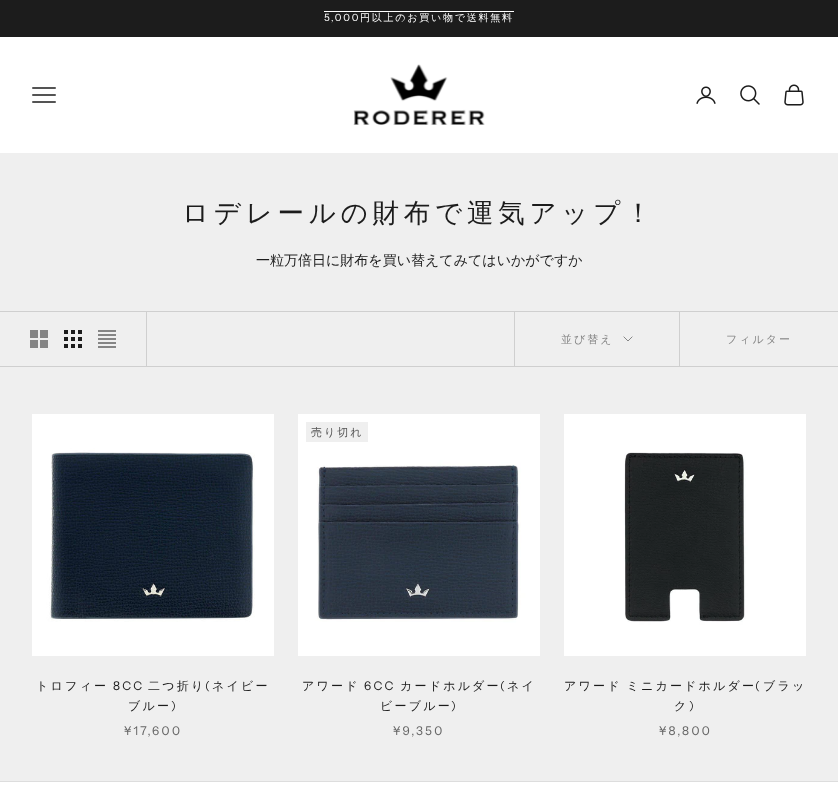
<svg xmlns="http://www.w3.org/2000/svg" width="838" height="802" viewBox="0 0 838 802">
  <rect width="100%" height="100%" fill="rgb(239,239,239)"/>
  <rect x="0" y="0" width="838" height="37" fill="rgb(28,28,28)"/>
  <text x="324" y="21" font-family="Instrument Sans" font-size="10" letter-spacing="1.75" fill="rgb(255,255,255)">5,000</text>
  <text x="360" y="21" font-family="WenQuanYi Zen Hei" font-size="10" font-weight="500" letter-spacing="1.75" fill="rgb(255,255,255)">円以上のお買い物で送料無料</text>
  <rect x="324" y="11" width="190" height="1" fill="rgb(255,255,255)"/>
  <rect x="0" y="37" width="838" height="116" fill="rgb(255,255,255)"/>
  <path d="M33 102H55M33 95H55M33 88H55" fill="none" stroke="rgb(28,28,28)" stroke-width="1.5" stroke-linecap="square"/>
  <image x="353" y="64" width="132" height="61" href="pic1.png"/>
  <image x="696" y="86" width="20" height="18" href="pic2.png"/>
  <image x="740" y="85" width="20" height="20" href="pic3.png"/>
  <image x="784" y="84" width="20" height="22" href="pic4.png"/>
  <text x="182" y="222" font-family="WenQuanYi Zen Hei" font-size="26.5" font-weight="500" letter-spacing="4.75" fill="rgb(28,28,28)">ロデレールの財布で運気アップ！</text>
  <text x="256" y="265" font-family="WenQuanYi Zen Hei" font-size="14" font-weight="500" fill="rgb(28,28,28)">一粒万倍日に財布を買い替えてみてはいかがですか</text>
  <rect x="0" y="311" width="838" height="1" fill="rgb(207,207,207)"/>
  <rect x="0" y="366" width="838" height="1" fill="rgb(207,207,207)"/>
  <rect x="146" y="312" width="1" height="54" fill="rgb(207,207,207)"/>
  <image x="30" y="330" width="18" height="18" href="pic5.png"/>
  <image x="64" y="330" width="18" height="18" href="pic6.png"/>
  <image x="98" y="330" width="18" height="18" href="pic7.png"/>
  <rect x="514" y="312" width="1" height="54" fill="rgb(207,207,207)"/>
  <text x="561" y="343" font-family="WenQuanYi Zen Hei" font-size="11" font-weight="500" letter-spacing="2" fill="rgb(134,134,134)">並び替え</text>
  <path d="M624 337L628 341L632 337" fill="none" stroke="rgb(134,134,134)" stroke-linecap="square"/>
  <rect x="679" y="312" width="1" height="54" fill="rgb(207,207,207)"/>
  <text x="726" y="343" font-family="WenQuanYi Zen Hei" font-size="11" font-weight="500" letter-spacing="2" fill="rgb(134,134,134)">フィルター</text>
  <image x="32" y="414" width="242" height="242" href="pic8.png"/>
  <text x="36" y="690" font-family="WenQuanYi Zen Hei" font-size="12" font-weight="500" letter-spacing="2.2" fill="rgb(28,28,28)">トロフィー</text>
  <text x="113" y="690" font-family="Instrument Sans" font-size="12" letter-spacing="2.2" fill="rgb(28,28,28)">8CC</text>
  <text x="148" y="690" font-family="WenQuanYi Zen Hei" font-size="12" font-weight="500" letter-spacing="2.2" fill="rgb(28,28,28)">二つ折り</text>
  <text x="205" y="690" font-family="Instrument Sans" font-size="12" letter-spacing="2.2" fill="rgb(28,28,28)">(</text>
  <g font-family="WenQuanYi Zen Hei" font-size="12" font-weight="500" letter-spacing="2.2" fill="rgb(28,28,28)">
    <text x="212" y="690">ネイビー</text>
    <text x="128" y="710">ブルー</text>
  </g>
  <text x="171" y="710" font-family="Instrument Sans" font-size="12" letter-spacing="2.2" fill="rgb(28,28,28)">)</text>
  <text x="124" y="735" font-family="Instrument Sans" font-size="12" letter-spacing="2.2" fill="rgb(102,102,102)">¥17,600</text>
  <image x="298" y="414" width="242" height="242" href="pic9.png"/>
  <rect x="306" y="422" width="62" height="20" fill="rgb(239,239,239)"/>
  <text x="311" y="436" font-family="WenQuanYi Zen Hei" font-size="11" font-weight="500" letter-spacing="2" fill="rgb(84,84,84)">売り切れ</text>
  <text x="302" y="690" font-family="WenQuanYi Zen Hei" font-size="12" font-weight="500" letter-spacing="2.2" fill="rgb(28,28,28)">アワード</text>
  <text x="364" y="690" font-family="Instrument Sans" font-size="12" letter-spacing="2.2" fill="rgb(28,28,28)">6CC</text>
  <text x="400" y="690" font-family="WenQuanYi Zen Hei" font-size="12" font-weight="500" letter-spacing="2.2" fill="rgb(28,28,28)">カードホルダー</text>
  <text x="500" y="690" font-family="Instrument Sans" font-size="12" letter-spacing="2.2" fill="rgb(28,28,28)">(</text>
  <g font-family="WenQuanYi Zen Hei" font-size="12" font-weight="500" letter-spacing="2.2" fill="rgb(28,28,28)">
    <text x="507" y="690">ネイ</text>
    <text x="380" y="710">ビーブルー</text>
  </g>
  <text x="451" y="710" font-family="Instrument Sans" font-size="12" letter-spacing="2.2" fill="rgb(28,28,28)">)</text>
  <text x="393" y="735" font-family="Instrument Sans" font-size="12" letter-spacing="2.2" fill="rgb(102,102,102)">¥9,350</text>
  <image x="564" y="414" width="242" height="242" href="pic10.png"/>
  <text x="564" y="690" word-spacing="-1" font-family="WenQuanYi Zen Hei" font-size="12" font-weight="500" letter-spacing="2.2" fill="rgb(28,28,28)">アワード ミニカードホルダー</text>
  <text x="755" y="690" font-family="Instrument Sans" font-size="12" letter-spacing="2.2" fill="rgb(28,28,28)">(</text>
  <g font-family="WenQuanYi Zen Hei" font-size="12" font-weight="500" letter-spacing="2.2" fill="rgb(28,28,28)">
    <text x="763" y="690">ブラッ</text>
    <text x="674" y="710">ク</text>
  </g>
  <text x="689" y="710" font-family="Instrument Sans" font-size="12" letter-spacing="2.2" fill="rgb(28,28,28)">)</text>
  <text x="659" y="735" font-family="Instrument Sans" font-size="12" letter-spacing="2.2" fill="rgb(102,102,102)">¥8,800</text>
  <rect x="0" y="782" width="838" height="20" fill="rgb(255,255,255)"/>
  <rect x="0" y="781" width="838" height="1" fill="rgb(221,221,221)"/>
</svg>
